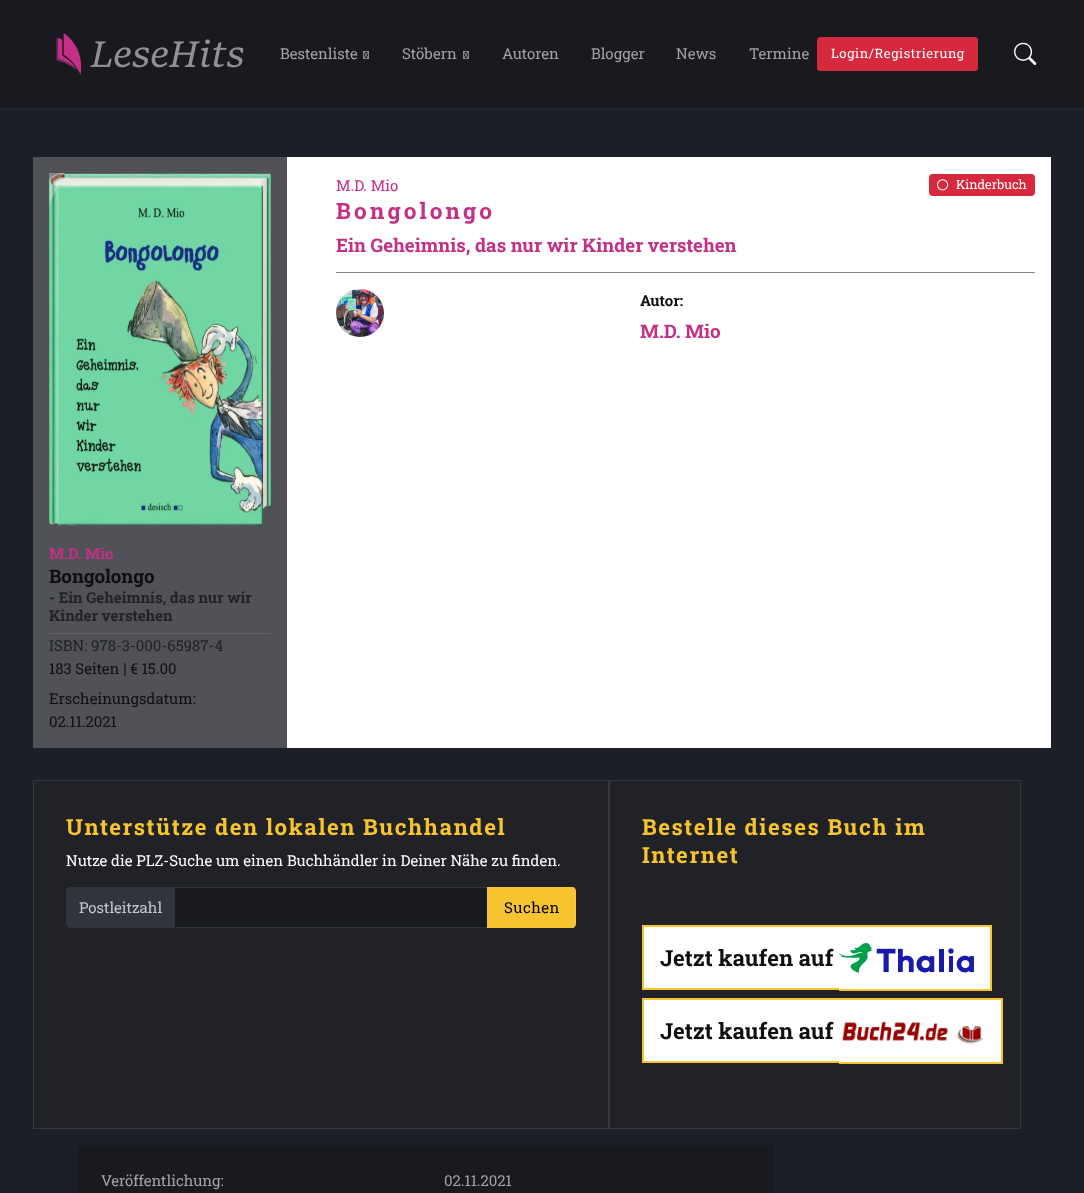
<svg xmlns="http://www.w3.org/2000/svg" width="1084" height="1193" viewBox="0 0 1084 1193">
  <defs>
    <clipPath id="clip1"><rect x="49" y="173" width="222" height="353"/></clipPath>
    <linearGradient id="g1" gradientUnits="userSpaceOnUse" x1="-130" y1="349" x2="-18" y2="349"><stop offset="0" stop-color="rgb(255,255,255)" stop-opacity="0"/><stop offset="1" stop-color="rgb(255,255,255)" stop-opacity="0.3"/></linearGradient>
  </defs>
  <rect width="100%" height="100%" fill="rgb(25,26,31)"/>
  <image x="56" y="33" width="188" height="42" href="pic1.png"/>
  <text x="280" y="59" font-family="Roboto Slab" font-size="15" fill="rgb(161,161,168)">Bestenliste</text>
  <image x="363" y="51" width="6" height="8" href="pic2.png"/>
  <text x="402" y="59" font-family="Roboto Slab" font-size="15" fill="rgb(161,161,168)">Stöbern</text>
  <image x="463" y="51" width="6" height="8" href="pic2.png"/>
  <g font-family="Roboto Slab" font-size="15" fill="rgb(161,161,168)">
    <text x="502" y="59">Autoren</text>
    <text x="591" y="59">Blogger</text>
    <text x="676" y="59">News</text>
    <text x="749" y="59">Termine</text>
  </g>
  <rect x="817.5" y="37.5" width="160" height="33" rx="2.5" fill="rgb(214,41,62)" stroke="rgb(214,41,62)"/>
  <text x="831" y="58" font-family="Roboto Slab" font-size="13" letter-spacing="0.5" fill="rgb(255,255,255)">Login/Registrierung</text>
  <image x="1014" y="42" width="23" height="23" href="pic3.png"/>
  <rect x="0" y="109" width="1084" height="1084" fill="rgb(29,31,38)"/>
  <rect x="0" y="108" width="1084" height="1" fill="rgb(29,38,57)"/>
  <rect x="287" y="157" width="764" height="591" fill="rgb(255,255,255)"/>
  <text x="336" y="191" font-family="Roboto Slab" font-size="15" fill="rgb(196,48,133)">M.D. Mio</text>
  <rect x="929" y="174" width="106" height="22" rx="4" fill="rgb(214,41,62)"/>
  <image x="937" y="179" width="12" height="12" href="pic4.png"/>
  <text x="956" y="189" font-family="Roboto Slab" font-size="12.75" fill="rgb(255,255,255)">Kinderbuch</text>
  <text x="336" y="219" font-family="Roboto Slab" font-size="22.5" font-weight="bold" letter-spacing="3.25" fill="rgb(196,48,133)">Bongolongo</text>
  <text x="336" y="252" font-family="Roboto Slab" font-size="18.75" font-weight="bold" fill="rgb(196,48,133)">Ein Geheimnis, das nur wir Kinder verstehen</text>
  <rect x="336" y="272" width="699" height="1" fill="rgb(131,133,138)"/>
  <image x="336" y="289" width="48" height="48" href="pic5.png"/>
  <text x="640" y="306" font-family="Roboto Slab" font-size="15" font-weight="bold" fill="rgb(15,15,16)">Autor:</text>
  <text x="640" y="338" font-family="Roboto Slab" font-size="18.75" font-weight="bold" fill="rgb(196,48,133)">M.D. Mio</text>
  <rect x="33" y="157" width="254" height="591" fill="rgb(80,82,87)"/>
  <image x="49" y="173" width="222" height="353" href="pic6.png"/>
  <g clip-path="url(#clip1)">
    <path d="M-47 173H64L-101 526H-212Z" fill="url(#g1)"/>
  </g>
  <text x="49" y="559" font-family="Roboto Slab" font-size="15" font-weight="bold" fill="rgb(196,48,133)">M.D. Mio</text>
  <text x="49" y="583" font-family="Roboto Slab" font-size="18.75" font-weight="bold" fill="rgb(15,15,16)">Bongolongo</text>
  <g font-family="Roboto Slab" font-size="15" font-weight="bold" fill="rgb(32,34,39)">
    <text>
      <tspan x="49" y="603">- Ein Geheimnis, das nur wir</tspan>
      <tspan x="49" y="621">Kinder verstehen</tspan>
    </text>
  </g>
  <rect x="49" y="633" width="222" height="1" fill="rgb(98,99,104)"/>
  <text x="49" y="651" font-family="Roboto Slab" font-size="15" fill="rgb(32,34,39)">ISBN: 978-3-000-65987-4</text>
  <g font-family="Roboto Slab" font-size="15" fill="rgb(15,15,16)">
    <text x="49" y="674">183 Seiten | € 15.00</text>
    <text>
      <tspan x="49" y="704">Erscheinungsdatum:</tspan>
      <tspan x="49" y="727">02.11.2021</tspan>
    </text>
  </g>
  <rect x="33.5" y="780.5" width="575" height="348" fill="rgb(32,34,39)" stroke="rgb(54,56,61)"/>
  <text x="66" y="835" font-family="Roboto Slab" font-size="22.25" font-weight="bold" letter-spacing="1.6" fill="rgb(247,195,46)">Unterstütze den lokalen Buchhandel</text>
  <text x="66" y="866" font-family="Roboto Slab" font-size="15" fill="rgb(255,255,255)">Nutze die PLZ-Suche um einen Buchhändler in Deiner Nähe zu finden.</text>
  <path d="M70 887.5H174.5V927.5H70C68 927.5 66.5 926 66.5 924V891C66.5 889 68 887.5 70 887.5Z" fill="rgb(48,52,60)" stroke="rgb(48,52,60)"/>
  <text x="79" y="913" font-family="Roboto Slab" font-size="15" fill="rgb(197,198,204)">Postleitzahl</text>
  <rect x="174.5" y="887.5" width="313" height="40" fill="rgb(25,26,31)" stroke="rgb(48,52,60)"/>
  <path d="M487 887H572C574 887 576 889 576 891V924C576 926 574 928 572 928H487Z" fill="rgb(247,195,46)"/>
  <path d="M487 887L488 888H572L574 889L575 888L572 887Z" fill="rgb(247,195,46)"/>
  <path d="M576 924V891C576 890 575.5 889 575 888L574 889C575 889 575 890 575 891V924C575 925 575 926 574 926L575 927C575.5 926 576 925 576 924Z" fill="rgba(255,255,255,0.1)"/>
  <path d="M572 928L575 927L574 926L572 927H488L487 928Z" fill="rgb(247,195,46)"/>
  <text x="504" y="913" font-family="Roboto Slab" font-size="15" letter-spacing="0.5" fill="rgb(0,0,0)">Suchen</text>
  <rect x="609.5" y="780.5" width="411" height="348" fill="rgb(32,34,39)" stroke="rgb(54,56,61)"/>
  <g font-family="Roboto Slab" font-size="22.25" font-weight="bold" letter-spacing="1.6" fill="rgb(247,195,46)">
    <text>
      <tspan x="642" y="835">Bestelle dieses Buch im</tspan>
      <tspan x="642" y="863">Internet</tspan>
    </text>
  </g>
  <rect x="644" y="927" width="195" height="61" fill="rgb(255,255,255)"/>
  <text x="660" y="966" font-family="Roboto Slab" font-size="22.25" font-weight="bold" fill="rgb(15,15,16)">Jetzt kaufen auf</text>
  <rect x="642" y="925" width="350" height="2" fill="rgb(247,195,46)"/>
  <rect x="642" y="988" width="197" height="2" fill="rgb(247,195,46)"/>
  <rect x="642" y="925" width="2" height="65" fill="rgb(247,195,46)"/>
  <rect x="839" y="927" width="151" height="62" fill="rgb(255,255,255)"/>
  <rect x="990" y="925" width="2" height="66" fill="rgb(247,195,46)"/>
  <rect x="839" y="989" width="153" height="2" fill="rgb(247,195,46)"/>
  <image x="839" y="943" width="135" height="30" href="pic7.png"/>
  <rect x="644" y="1000" width="195" height="61" fill="rgb(255,255,255)"/>
  <text x="660" y="1039" font-family="Roboto Slab" font-size="22.25" font-weight="bold" fill="rgb(15,15,16)">Jetzt kaufen auf</text>
  <rect x="642" y="998" width="361" height="2" fill="rgb(247,195,46)"/>
  <rect x="642" y="1061" width="197" height="2" fill="rgb(247,195,46)"/>
  <rect x="642" y="998" width="2" height="65" fill="rgb(247,195,46)"/>
  <rect x="839" y="1000" width="162" height="62" fill="rgb(255,255,255)"/>
  <rect x="1001" y="998" width="2" height="66" fill="rgb(247,195,46)"/>
  <rect x="839" y="1062" width="164" height="2" fill="rgb(247,195,46)"/>
  <image x="842" y="1021" width="142" height="23" href="pic8.png"/>
  <rect x="77" y="1145" width="697" height="48" fill="rgb(25,26,31)"/>
  <g font-family="Roboto Slab" font-size="15" fill="rgb(161,161,168)">
    <text x="101" y="1186">Veröffentlichung:</text>
    <text x="444" y="1186">02.11.2021</text>
  </g>
</svg>
